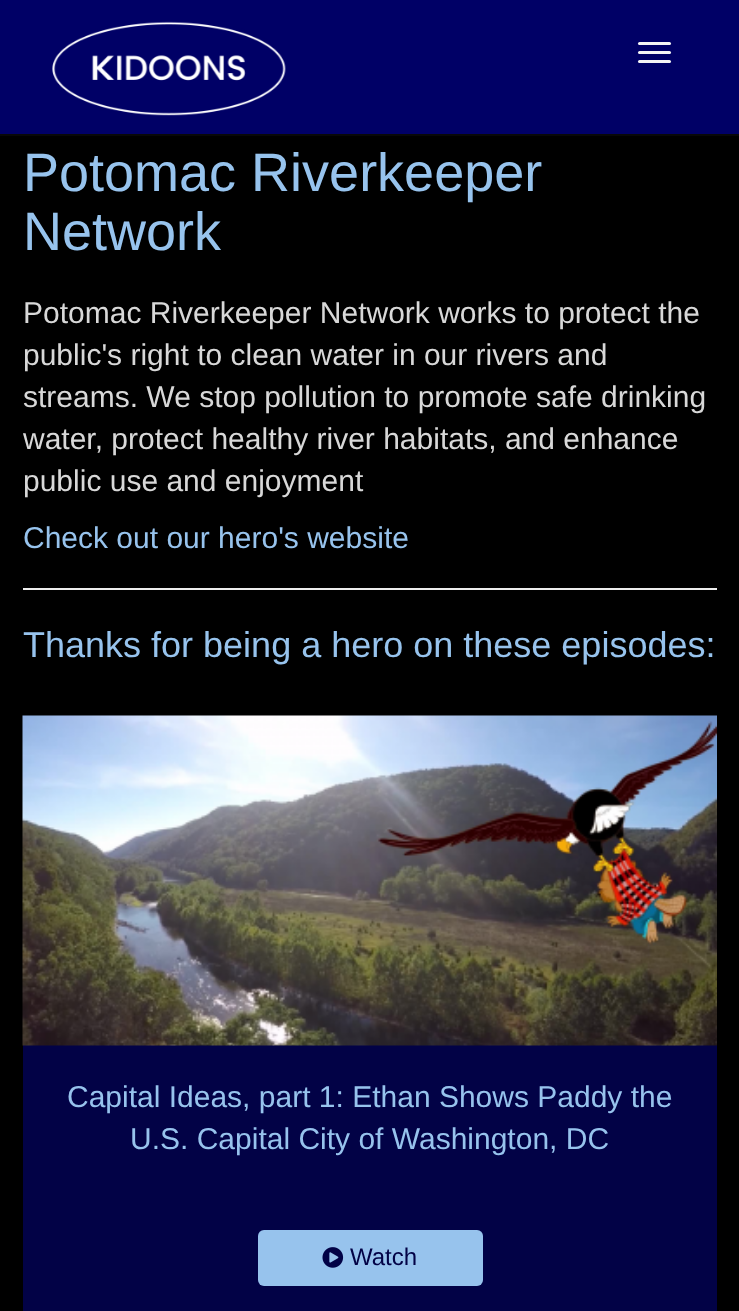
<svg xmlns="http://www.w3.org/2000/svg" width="739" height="1311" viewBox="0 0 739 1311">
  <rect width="100%" height="100%" fill="rgb(0,0,0)"/>
  <rect x="0" y="0" width="739" height="134" fill="rgb(0,0,102)"/>
  <rect x="0" y="134" width="739" height="2" fill="rgb(8,8,8)"/>
  <image x="52" y="21" width="234" height="95" href="pic1.png"/>
  <rect x="638" y="42" width="33" height="3" rx="1.5" fill="rgb(245,245,245)"/>
  <rect x="638" y="51" width="33" height="3" rx="1.5" fill="rgb(245,245,245)"/>
  <rect x="638" y="60" width="33" height="3" rx="1.5" fill="rgb(245,245,245)"/>
  <g font-family="Liberation Sans" font-size="54" fill="rgb(151,195,237)">
    <text>
      <tspan x="23" y="191">Potomac Riverkeeper</tspan>
      <tspan x="23" y="250">Network</tspan>
    </text>
  </g>
  <g font-family="Liberation Sans" font-size="30" fill="rgb(216,216,216)">
    <text>
      <tspan x="23" y="323">Potomac Riverkeeper Network works to protect the</tspan>
      <tspan x="23" y="365">public's right to clean water in our rivers and</tspan>
      <tspan x="23" y="407">streams. We stop pollution to promote safe drinking</tspan>
      <tspan x="23" y="449">water, protect healthy river habitats, and enhance</tspan>
      <tspan x="23" y="491">public use and enjoyment</tspan>
    </text>
  </g>
  <text x="23" y="548" font-family="Liberation Sans" font-size="30" fill="rgb(151,195,237)">Check out our hero's website</text>
  <rect x="23" y="588" width="694" height="2" fill="rgb(238,238,238)"/>
  <text x="23" y="657" font-family="Liberation Sans" font-size="36" fill="rgb(151,195,237)">Thanks for being a hero on these episodes:</text>
  <rect x="23" y="1045" width="694" height="266" fill="rgb(2,2,70)"/>
  <image x="22" y="715" width="695" height="331" href="pic2.png"/>
  <g font-family="Liberation Sans" font-size="30" fill="rgb(151,195,237)">
    <text x="67" y="1107">Capital Ideas, part 1: Ethan Shows Paddy the</text>
    <text x="130" y="1149">U.S. Capital City of Washington, DC</text>
  </g>
  <rect x="258" y="1230" width="225" height="56" rx="6" fill="rgb(151,195,237)"/>
  <image x="322" y="1247" width="22" height="21" href="pic3.png"/>
  <text x="350" y="1265" font-family="Liberation Sans" font-size="24" fill="rgb(2,2,70)">Watch</text>
</svg>
